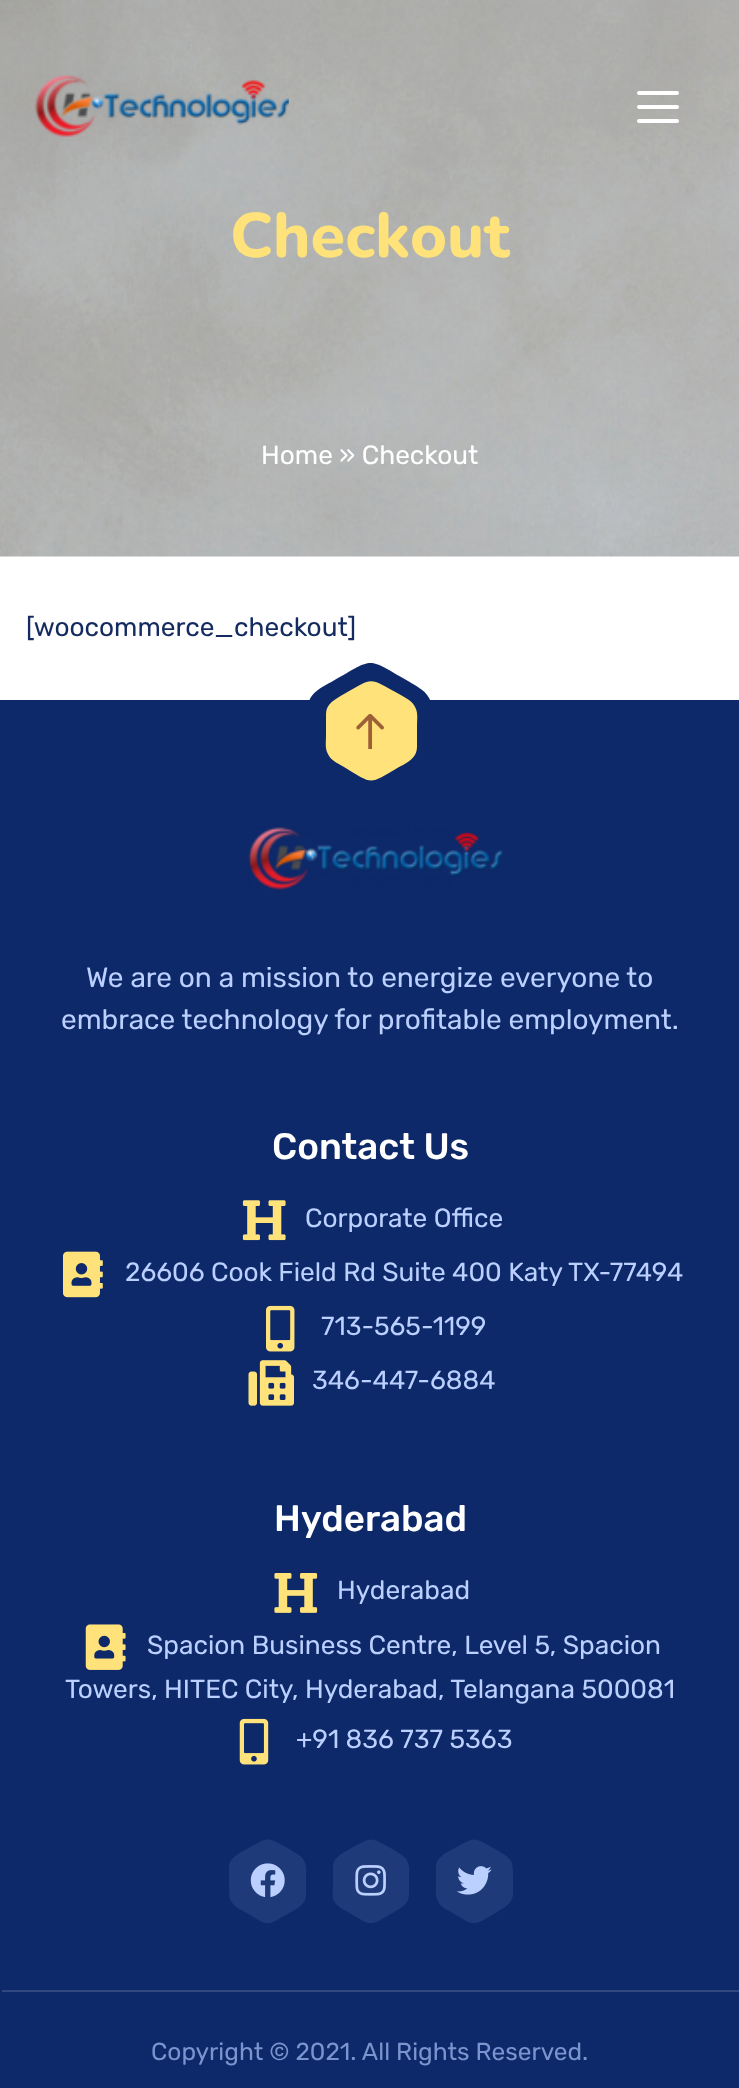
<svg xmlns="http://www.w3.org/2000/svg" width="739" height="2088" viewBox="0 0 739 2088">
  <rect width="100%" height="100%" fill="rgb(255,255,255)"/>
  <image x="0" y="0" width="739" height="557" href="pic1.png"/>
  <image x="34" y="75" width="255" height="62" href="pic2.png"/>
  <rect x="637" y="105" width="42" height="4" rx="2" fill="rgb(255,255,255)"/>
  <rect x="637" y="91" width="42" height="4" rx="2" fill="rgb(255,255,255)"/>
  <rect x="637" y="119" width="42" height="4" rx="2" fill="rgb(255,255,255)"/>
  <text x="230" y="257" font-family="Nunito" font-size="63" font-weight="800" fill="rgb(255,226,122)">Checkout</text>
  <text x="261" y="464" font-family="Rubik" font-size="26.25" fill="rgb(255,255,255)">Home » Checkout</text>
  <text x="26" y="636" font-family="Rubik" font-size="26.25" fill="rgb(20,43,95)">[woocommerce_checkout]</text>
  <rect x="0" y="700" width="739" height="1388" fill="rgb(13,41,105)"/>
  <path d="M308 708C308 693 322 687 333 681C375 657 366 657 408 681C418 687 427 691 431 702C434 708 433 717 433 724V754C433 769 419 775 408 781C366 805 375 805 333 781C323 776 314 772 310 761C307 754 308 746 308 738Z" fill="rgb(13,41,105)"/>
  <path d="M326 714C326 703 336 699 344 694C374 677 368 677 399 694C406 698 413 701 416 709C418 714 417 720 417 725V747C417 758 407 763 399 767C368 785 374 785 344 767C337 763 330 760 327 752C325 747 326 741 326 736Z" fill="rgb(255,226,122)"/>
  <image x="356" y="714" width="28" height="35" href="pic3.png"/>
  <image x="248" y="827" width="255" height="63" href="pic4.png"/>
  <g font-family="Rubik" font-size="28" fill="rgb(187,208,255)">
    <text x="86" y="987">We are on a mission to energize everyone to</text>
    <text x="61" y="1029">embrace technology for profitable employment.</text>
  </g>
  <text x="272" y="1159" font-family="Rubik" font-size="36.75" font-weight="500" fill="rgb(255,255,255)">Contact Us</text>
  <image x="242" y="1200" width="44" height="41" href="pic5.png"/>
  <text x="305" y="1227" font-family="Rubik" font-size="26.25" fill="rgb(187,208,255)">Corporate Office</text>
  <image x="63" y="1251" width="40" height="47" href="pic6.png"/>
  <text x="125" y="1281" font-family="Rubik" font-size="26.25" fill="rgb(187,208,255)">26606 Cook Field Rd Suite 400 Katy TX-77494</text>
  <image x="266" y="1305" width="29" height="47" href="pic7.png"/>
  <text x="321" y="1335" font-family="Rubik" font-size="26.25" fill="rgb(187,208,255)">713-565-1199</text>
  <image x="248" y="1360" width="46" height="46" href="pic8.png"/>
  <text x="312" y="1389" font-family="Rubik" font-size="26.25" fill="rgb(187,208,255)">346-447-6884</text>
  <text x="274" y="1531" font-family="Rubik" font-size="36.75" font-weight="500" fill="rgb(255,255,255)">Hyderabad</text>
  <image x="274" y="1573" width="44" height="40" href="pic9.png"/>
  <text x="337" y="1599" font-family="Rubik" font-size="26.25" fill="rgb(187,208,255)">Hyderabad</text>
  <image x="85" y="1624" width="41" height="46" href="pic10.png"/>
  <g font-family="Rubik" font-size="26.25" fill="rgb(187,208,255)">
    <text x="147" y="1654">Spacion Business Centre, Level 5, Spacion</text>
    <text x="65" y="1698">Towers, HITEC City, Hyderabad, Telangana 500081</text>
  </g>
  <image x="239" y="1718" width="30" height="47" href="pic11.png"/>
  <text x="296" y="1748" font-family="Rubik" font-size="26.25" fill="rgb(187,208,255)">+91 836 737 5363</text>
  <path d="M229 1867C229 1858 238 1854 245 1850C270 1836 266 1836 291 1850C297 1854 303 1856 305 1863C307 1867 306 1872 306 1877V1895C306 1904 298 1908 291 1912C265 1927 270 1927 245 1912C239 1909 233 1906 230 1899C229 1895 229 1890 229 1886Z" fill="rgb(30,58,120)"/>
  <image x="250" y="1863" width="35" height="35" href="pic12.png"/>
  <path d="M333 1867C333 1858 341 1854 348 1850C373 1836 369 1836 394 1850C400 1854 406 1856 408 1863C410 1867 409 1872 409 1877V1895C409 1904 401 1908 394 1912C369 1927 373 1927 348 1912C342 1909 336 1906 333 1899C332 1895 333 1890 333 1886Z" fill="rgb(30,58,120)"/>
  <image x="355" y="1865" width="31" height="31" href="pic13.png"/>
  <path d="M436 1867C436 1858 444 1854 451 1850C477 1836 472 1836 497 1850C503 1854 509 1856 512 1863C513 1867 513 1872 513 1877V1895C512 1904 504 1908 497 1912C472 1927 476 1927 451 1912C445 1909 439 1906 437 1899C435 1895 436 1890 436 1886Z" fill="rgb(30,58,120)"/>
  <image x="457" y="1866" width="35" height="29" href="pic14.png"/>
  <rect x="2" y="1990" width="737" height="2" fill="rgb(49,73,128)"/>
  <text x="151" y="2060" font-family="Rubik" font-size="24.5" fill="rgb(122,148,205)">Copyright © 2021. All Rights Reserved.</text>
</svg>
